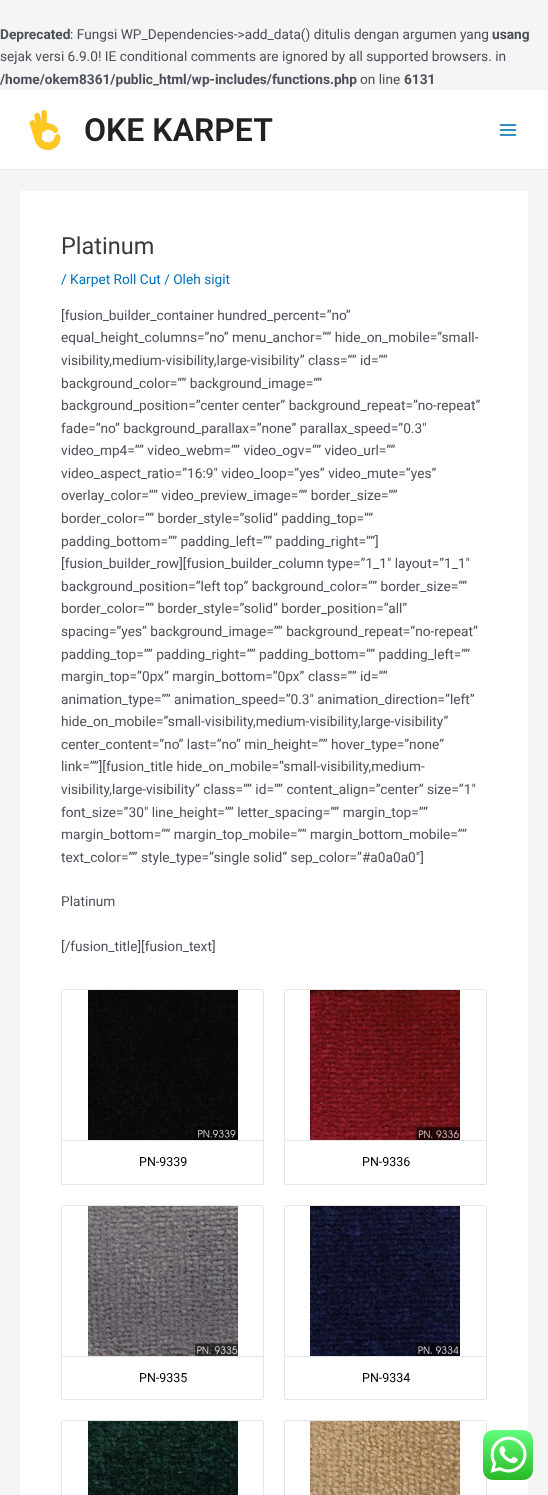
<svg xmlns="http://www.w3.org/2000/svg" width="548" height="1495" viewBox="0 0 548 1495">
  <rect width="100%" height="100%" fill="rgb(245,245,245)"/>
  <text x="0" y="39" font-family="Roboto" font-size="13.7" font-weight="bold" fill="rgb(75,79,88)">Deprecated</text>
  <text x="70" y="39" font-family="Roboto" font-size="13.7" fill="rgb(75,79,88)">: Fungsi WP_Dependencies-&gt;add_data() ditulis dengan argumen yang</text>
  <text x="492" y="39" font-family="Roboto" font-size="13.7" font-weight="bold" fill="rgb(75,79,88)">usang</text>
  <text x="0" y="61" font-family="Roboto" font-size="13.7" fill="rgb(75,79,88)">sejak versi 6.9.0! IE conditional comments are ignored by all supported browsers. in</text>
  <text x="0" y="84" font-family="Roboto" font-size="13.7" font-weight="bold" fill="rgb(75,79,88)">/home/okem8361/public_html/wp-includes/functions.php</text>
  <text x="360" y="84" font-family="Roboto" font-size="13.7" fill="rgb(75,79,88)">on line</text>
  <text x="404" y="84" font-family="Roboto" font-size="13.7" font-weight="bold" fill="rgb(75,79,88)">6131</text>
  <rect x="0" y="90" width="548" height="79" fill="rgb(255,255,255)"/>
  <rect x="0" y="169" width="548" height="1" fill="rgb(234,234,234)"/>
  <image x="29" y="110" width="32" height="40" href="pic1.png"/>
  <text x="84" y="141" font-family="Roboto" font-size="32" font-weight="600" fill="rgb(34,34,34)">OKE KARPET</text>
  <image x="499" y="124" width="18" height="12" href="pic2.png"/>
  <rect x="20" y="191" width="508" height="1304" fill="rgb(255,255,255)"/>
  <text x="61" y="254" font-family="Roboto" font-size="23.5" fill="rgb(58,58,58)">Platinum</text>
  <text x="61" y="284" font-family="Roboto" font-size="13.7" fill="rgb(1,112,185)">/ Karpet Roll Cut / Oleh sigit</text>
  <g font-family="Roboto" font-size="13.7" fill="rgb(75,79,88)">
    <text>
      <tspan x="61" y="320">[fusion_builder_container hundred_percent=”no”</tspan>
      <tspan x="61" y="342">equal_height_columns=”no” menu_anchor=”” hide_on_mobile=”small-</tspan>
      <tspan x="61" y="365">visibility,medium-visibility,large-visibility” class=”” id=””</tspan>
      <tspan x="61" y="388">background_color=”” background_image=””</tspan>
      <tspan x="61" y="410">background_position=”center center” background_repeat=”no-repeat”</tspan>
      <tspan x="61" y="433">fade=”no” background_parallax=”none” parallax_speed=”0.3″</tspan>
      <tspan x="61" y="455">video_mp4=”” video_webm=”” video_ogv=”” video_url=””</tspan>
      <tspan x="61" y="478">video_aspect_ratio=”16:9″ video_loop=”yes” video_mute=”yes”</tspan>
      <tspan x="61" y="500">overlay_color=”” video_preview_image=”” border_size=””</tspan>
      <tspan x="61" y="523">border_color=”” border_style=”solid” padding_top=””</tspan>
      <tspan x="61" y="546">padding_bottom=”” padding_left=”” padding_right=””]</tspan>
      <tspan x="61" y="568">[fusion_builder_row][fusion_builder_column type=”1_1″ layout=”1_1″</tspan>
      <tspan x="61" y="591">background_position=”left top” background_color=”” border_size=””</tspan>
      <tspan x="61" y="613">border_color=”” border_style=”solid” border_position=”all”</tspan>
      <tspan x="61" y="636">spacing=”yes” background_image=”” background_repeat=”no-repeat”</tspan>
      <tspan x="61" y="659">padding_top=”” padding_right=”” padding_bottom=”” padding_left=””</tspan>
      <tspan x="61" y="681">margin_top=”0px” margin_bottom=”0px” class=”” id=””</tspan>
      <tspan x="61" y="704">animation_type=”” animation_speed=”0.3″ animation_direction=”left”</tspan>
      <tspan x="61" y="726">hide_on_mobile=”small-visibility,medium-visibility,large-visibility”</tspan>
      <tspan x="61" y="749">center_content=”no” last=”no” min_height=”” hover_type=”none”</tspan>
      <tspan x="61" y="771">link=””][fusion_title hide_on_mobile=”small-visibility,medium-</tspan>
      <tspan x="61" y="794">visibility,large-visibility” class=”” id=”” content_align=”center” size=”1″</tspan>
      <tspan x="61" y="817">font_size=”30″ line_height=”” letter_spacing=”” margin_top=””</tspan>
      <tspan x="61" y="839">margin_bottom=”” margin_top_mobile=”” margin_bottom_mobile=””</tspan>
      <tspan x="61" y="862">text_color=”” style_type=”single solid” sep_color=”#a0a0a0″]</tspan>
    </text>
    <text x="61" y="906">Platinum</text>
    <text x="61" y="951">[/fusion_title][fusion_text]</text>
  </g>
  <path d="M63 989.5H262C263 989.5 263.5 990 263.5 991V1140.5H61.5V991C61.5 990 62 989.5 63 989.5Z" fill="none" stroke="rgb(229,229,229)"/>
  <image x="88" y="990" width="150" height="150" href="pic3.png"/>
  <rect x="263" y="1141" width="1" height="43" fill="rgb(229,229,229)"/>
  <rect x="62" y="1184" width="201" height="1" fill="rgb(229,229,229)"/>
  <rect x="61" y="1141" width="1" height="43" fill="rgb(229,229,229)"/>
  <text x="139" y="1166" font-family="Roboto" font-size="12.5" fill="rgb(0,0,0)">PN-9339</text>
  <path d="M286 989.5H485C486 989.5 486.5 990 486.5 991V1140.5H284.5V991C284.5 990 285 989.5 286 989.5Z" fill="none" stroke="rgb(229,229,229)"/>
  <image x="310" y="990" width="150" height="150" href="pic4.png"/>
  <rect x="486" y="1141" width="1" height="43" fill="rgb(229,229,229)"/>
  <rect x="285" y="1184" width="201" height="1" fill="rgb(229,229,229)"/>
  <rect x="284" y="1141" width="1" height="43" fill="rgb(229,229,229)"/>
  <text x="362" y="1166" font-family="Roboto" font-size="12.5" fill="rgb(0,0,0)">PN-9336</text>
  <path d="M63 1205.5H262C263 1205.5 263.5 1206 263.5 1207V1356.5H61.5V1207C61.5 1206 62 1205.5 63 1205.5Z" fill="none" stroke="rgb(229,229,229)"/>
  <image x="88" y="1206" width="150" height="150" href="pic5.png"/>
  <rect x="263" y="1357" width="1" height="42" fill="rgb(229,229,229)"/>
  <rect x="62" y="1399" width="201" height="1" fill="rgb(229,229,229)"/>
  <rect x="61" y="1357" width="1" height="42" fill="rgb(229,229,229)"/>
  <text x="139" y="1382" font-family="Roboto" font-size="12.5" fill="rgb(0,0,0)">PN-9335</text>
  <path d="M286 1205.5H485C486 1205.5 486.5 1206 486.5 1207V1356.5H284.5V1207C284.5 1206 285 1205.5 286 1205.5Z" fill="none" stroke="rgb(229,229,229)"/>
  <image x="310" y="1206" width="150" height="150" href="pic6.png"/>
  <rect x="486" y="1357" width="1" height="42" fill="rgb(229,229,229)"/>
  <rect x="285" y="1399" width="201" height="1" fill="rgb(229,229,229)"/>
  <rect x="284" y="1357" width="1" height="42" fill="rgb(229,229,229)"/>
  <text x="362" y="1382" font-family="Roboto" font-size="12.5" fill="rgb(0,0,0)">PN-9334</text>
  <path d="M63 1420.5H262C263 1420.5 263.5 1421 263.5 1422V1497.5H61.5V1422C61.5 1421 62 1420.5 63 1420.5Z" fill="none" stroke="rgb(229,229,229)"/>
  <image x="88" y="1421" width="150" height="74" href="pic7.png"/>
  <path d="M286 1420.5H485C486 1420.5 486.5 1421 486.5 1422V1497.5H284.5V1422C284.5 1421 285 1420.5 286 1420.5Z" fill="none" stroke="rgb(229,229,229)"/>
  <image x="310" y="1421" width="150" height="74" href="pic8.png"/>
  <image x="483" y="1430" width="50" height="50" href="pic9.png"/>
</svg>
